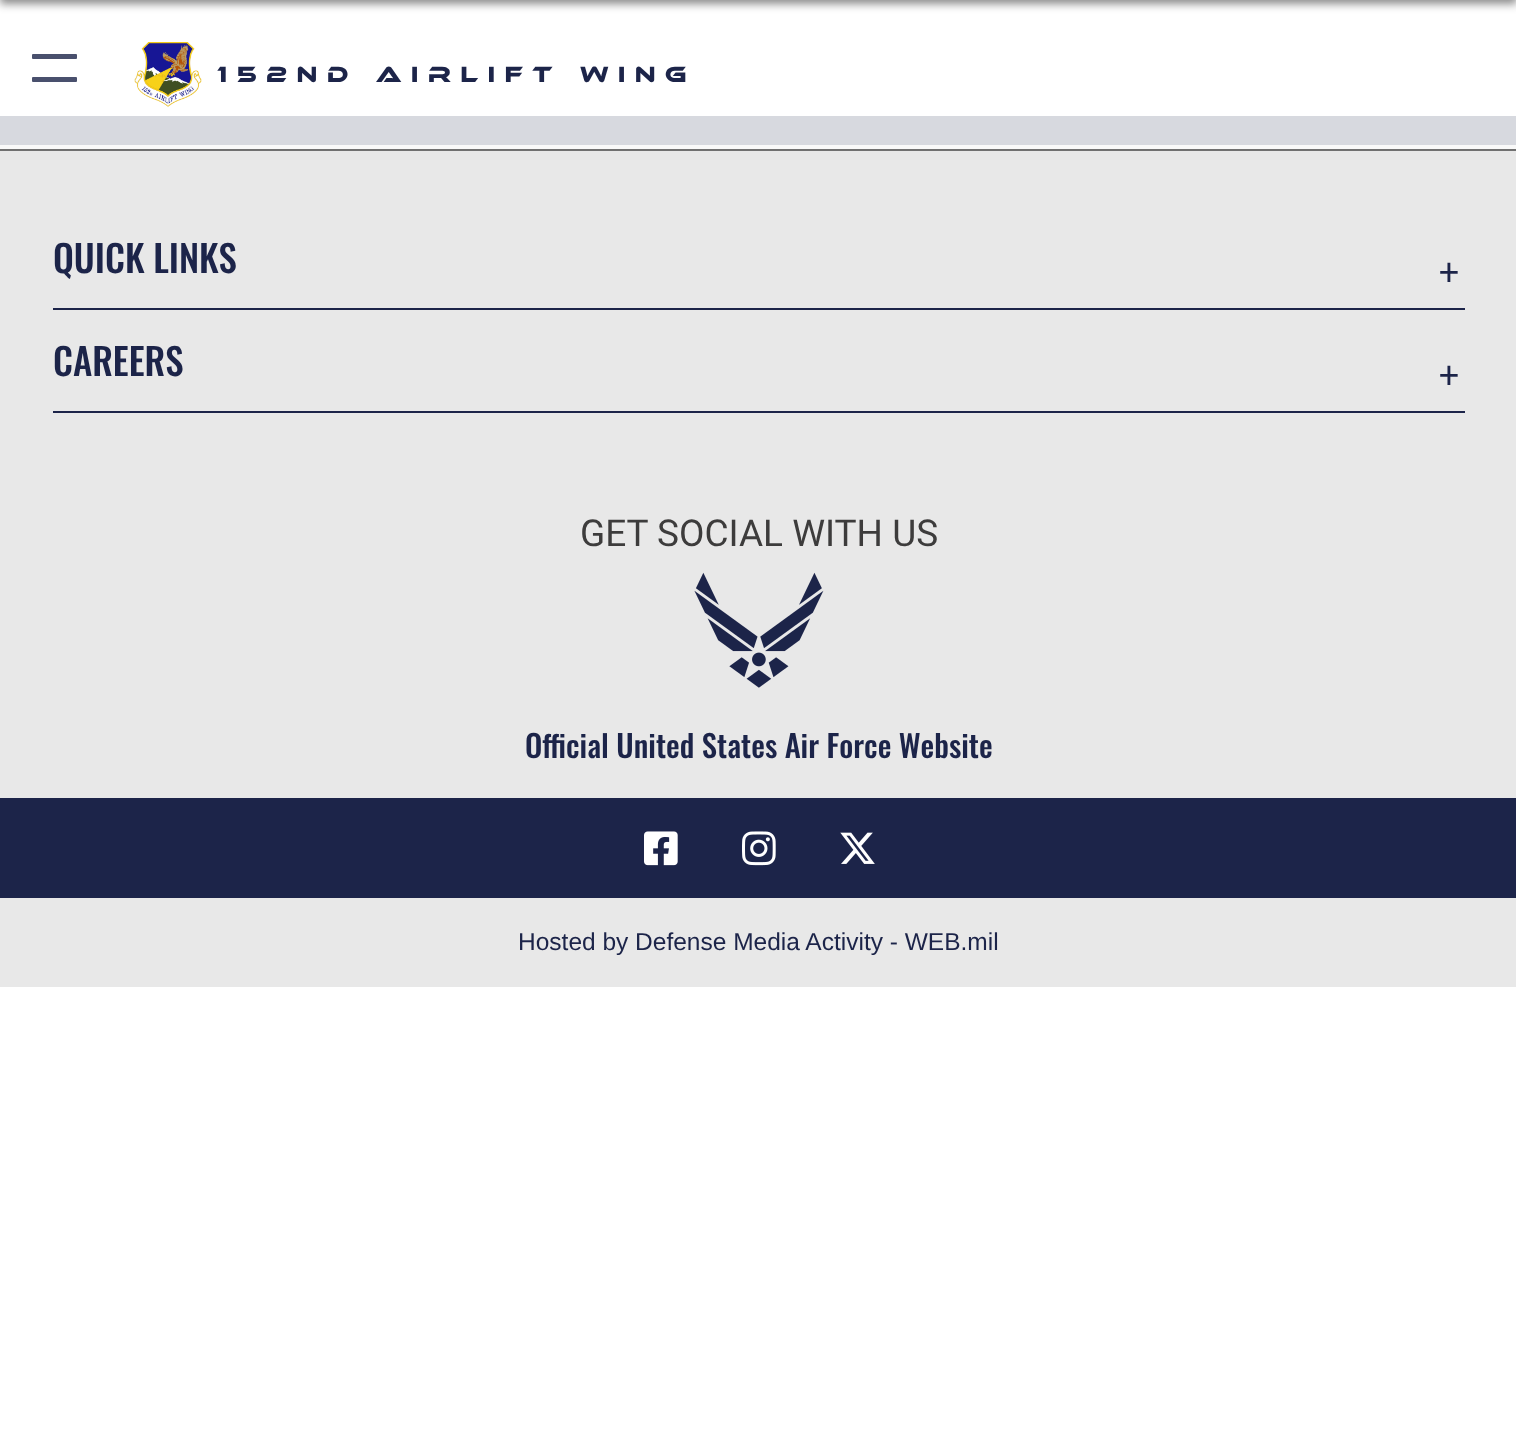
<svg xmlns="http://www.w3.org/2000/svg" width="1516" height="1456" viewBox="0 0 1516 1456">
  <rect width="100%" height="100%" fill="rgb(255,255,255)"/>
  <rect x="0" y="-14" width="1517" height="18" fill="rgba(26,26,26,0.5)" filter="blur(4.5px)"/>
  <rect x="0" y="149" width="1516" height="2" fill="rgb(112,112,112)"/>
  <rect x="32" y="54" width="45" height="5" rx="1" fill="rgb(73,80,109)"/>
  <rect x="32" y="77" width="45" height="5" rx="1" fill="rgb(73,80,109)"/>
  <image x="134" y="42" width="68" height="65" href="pic1.png"/>
  <text x="217" y="82" font-family="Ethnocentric" font-size="22.75" letter-spacing="9.25" fill="rgb(28,36,73)">152nd Airlift Wing</text>
  <rect x="0" y="116" width="1516" height="29" fill="rgb(215,217,223)"/>
  <rect x="0" y="151" width="1516" height="836" fill="rgb(232,232,232)"/>
  <rect x="0" y="145" width="1516" height="4" fill="rgb(249,249,249)"/>
  <rect x="53" y="308" width="1412" height="2" fill="rgb(28,36,73)"/>
  <text x="53" y="273" font-family="Oswald" font-size="37" font-weight="500" fill="rgb(28,36,73)">QUICK LINKS</text>
  <text x="1439" y="294" font-family="Oswald" font-size="52" font-weight="300" fill="rgb(28,36,73)">+</text>
  <rect x="53" y="411" width="1412" height="2" fill="rgb(28,36,73)"/>
  <text x="53" y="376" font-family="Oswald" font-size="37" font-weight="500" fill="rgb(28,36,73)">CAREERS</text>
  <text x="1439" y="397" font-family="Oswald" font-size="52" font-weight="300" fill="rgb(28,36,73)">+</text>
  <text x="580" y="546" font-family="Roboto" font-size="37" fill="rgb(61,60,60)">GET SOCIAL WITH US</text>
  <image x="694" y="572" width="130" height="116" href="pic2.png"/>
  <text x="525" y="758" font-family="Oswald" font-size="30.75" font-weight="500" fill="rgb(28,36,73)">Official United States Air Force Website</text>
  <rect x="0" y="798" width="1516" height="100" fill="rgb(28,36,73)"/>
  <image x="644" y="831" width="34" height="35" href="pic3.png"/>
  <image x="742" y="831" width="34" height="35" href="pic4.png"/>
  <image x="840" y="832" width="35" height="32" href="pic5.png"/>
  <text x="518" y="950" font-family="Liberation Sans" font-size="24.5" fill="rgb(28,36,73)">Hosted by Defense Media Activity - WEB.mil</text>
</svg>
